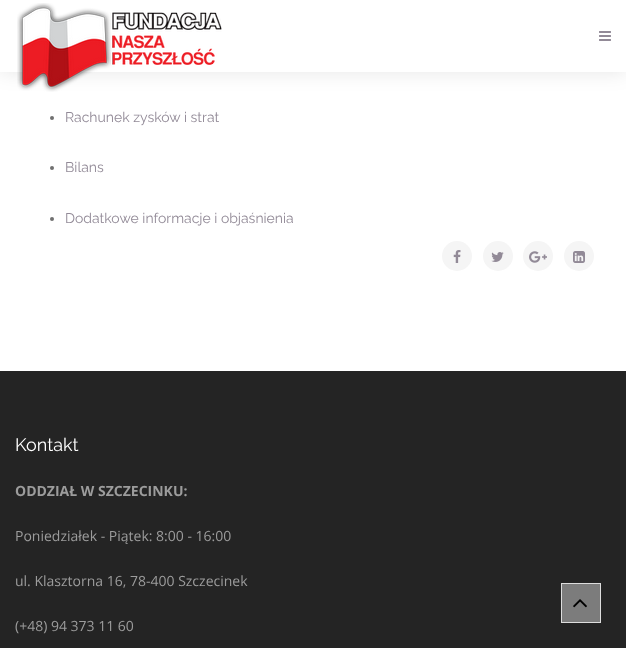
<svg xmlns="http://www.w3.org/2000/svg" width="626" height="648" viewBox="0 0 626 648">
  <rect width="100%" height="100%" fill="rgb(255,255,255)"/>
  <rect x="0" y="0" width="626" height="72" fill="rgba(0,0,0,0.1)" filter="blur(10px)"/>
  <rect x="0" y="0" width="626" height="72" fill="rgb(255,255,255)"/>
  <image x="17" y="3" width="205" height="89" href="pic1.png"/>
  <image x="599" y="31" width="12" height="10" href="pic2.png"/>
  <circle cx="52" cy="118" r="2" fill="rgb(112,112,112)"/>
  <text x="65" y="122" font-family="Raleway" font-size="14" fill="rgb(146,138,151)">Rachunek zysków i strat</text>
  <circle cx="52" cy="168" r="2" fill="rgb(112,112,112)"/>
  <text x="65" y="172" font-family="Raleway" font-size="14" fill="rgb(146,138,151)">Bilans</text>
  <circle cx="52" cy="219" r="2" fill="rgb(112,112,112)"/>
  <text x="65" y="223" font-family="Raleway" font-size="14" fill="rgb(146,138,151)">Dodatkowe informacje i objaśnienia</text>
  <circle cx="457" cy="256" r="15" fill="rgb(245,245,245)"/>
  <image x="453" y="250" width="8" height="13" href="pic3.png"/>
  <circle cx="498" cy="256" r="15" fill="rgb(245,245,245)"/>
  <image x="491" y="252" width="13" height="10" href="pic4.png"/>
  <circle cx="538" cy="256" r="15" fill="rgb(245,245,245)"/>
  <image x="529" y="251" width="18" height="12" href="pic5.png"/>
  <circle cx="579" cy="256" r="15" fill="rgb(245,245,245)"/>
  <image x="573" y="251" width="12" height="12" href="pic6.png"/>
  <rect x="0" y="371" width="626" height="277" fill="rgb(36,36,36)"/>
  <text x="15" y="451" font-family="Raleway" font-size="18" fill="rgb(255,255,255)">Kontakt</text>
  <text x="15" y="496" font-family="Open Sans" font-size="14" font-weight="bold" fill="rgb(156,156,156)">ODDZIAŁ W SZCZECINKU:</text>
  <g font-family="Open Sans" font-size="14" fill="rgb(156,156,156)">
    <text x="15" y="541">Poniedziałek - Piątek: 8:00 - 16:00</text>
    <text x="15" y="586">ul. Klasztorna 16, 78-400 Szczecinek</text>
    <text x="15" y="631">(+48) 94 373 11 60</text>
  </g>
  <rect x="561.5" y="583.5" width="39" height="39" fill="rgb(124,124,124)" stroke="rgb(221,221,221)"/>
  <image x="573" y="599" width="14" height="9" href="pic7.png"/>
</svg>
